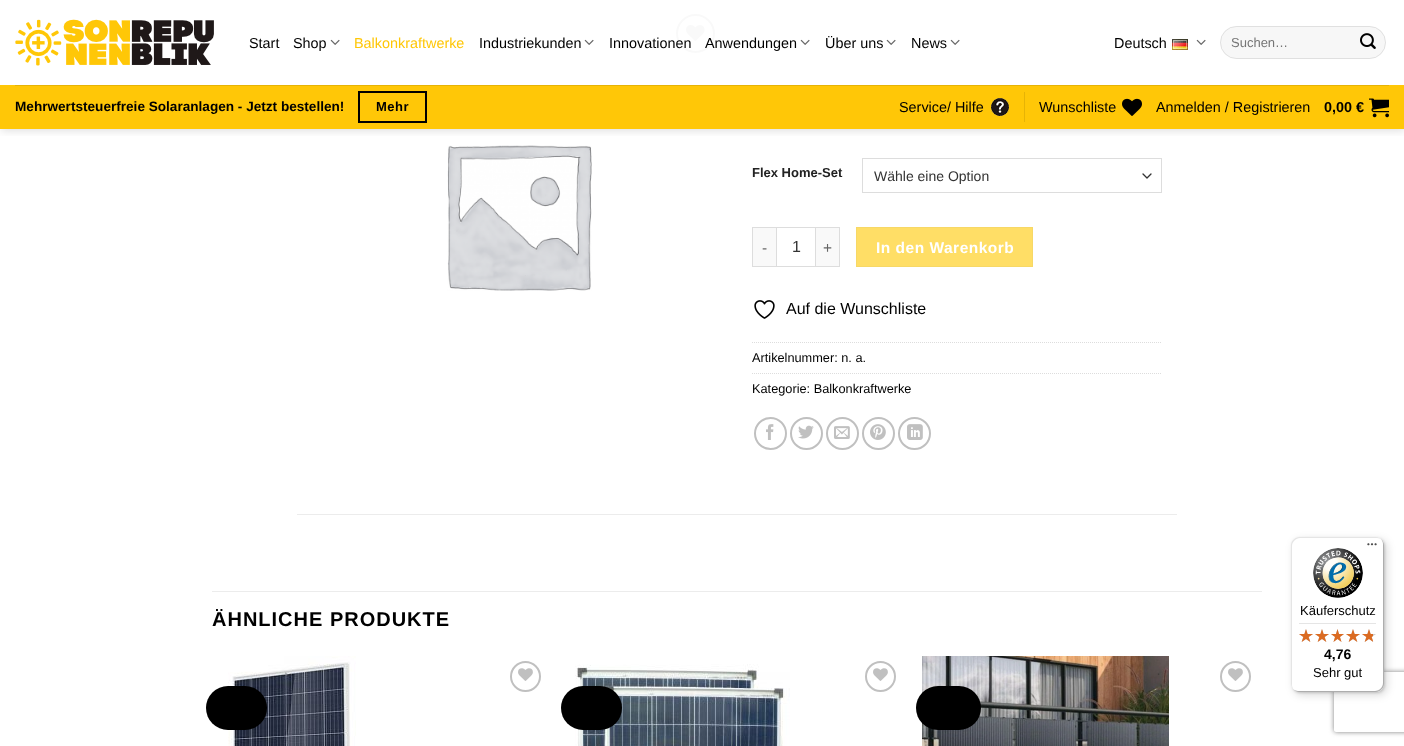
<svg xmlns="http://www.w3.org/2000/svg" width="1404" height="746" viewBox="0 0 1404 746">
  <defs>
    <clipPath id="clip1"><rect x="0" y="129" width="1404" height="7"/></clipPath>
    <clipPath id="clip2"><path d="M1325 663H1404V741H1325ZM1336 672H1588C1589 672 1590 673 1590 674V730C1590 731 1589 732 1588 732H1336C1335 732 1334 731 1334 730V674C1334 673 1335 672 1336 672Z" clip-rule="evenodd"/></clipPath>
  </defs>
  <rect width="100%" height="100%" fill="rgb(255,255,255)"/>
  <circle cx="695.5" cy="33.5" r="18.5" fill="none" stroke="rgb(192,192,192)" stroke-width="2"/>
  <image x="686" y="25" width="19" height="16" href="pic8.png"/>
  <image x="447" y="145" width="145" height="146" href="pic9.png"/>
  <g clip-path="url(#clip1)">
    <rect x="1" y="1" width="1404" height="129" fill="rgba(0,0,0,0.15)" filter="blur(5px)"/>
  </g>
  <rect x="676" y="14" width="39" height="39" fill="rgba(255,255,255,0.9)"/>
  <image x="15" y="19" width="199" height="47" href="pic1.png"/>
  <g font-family="Liberation Sans" font-size="14.4" fill="rgb(0,0,0)">
    <text x="249" y="48">Start</text>
    <text x="293" y="48">Shop</text>
  </g>
  <image x="330" y="39" width="10" height="6" href="pic2.png"/>
  <text x="354" y="48" font-family="Liberation Sans" font-size="14.4" fill="rgb(255,199,7)">Balkonkraftwerke</text>
  <text x="479" y="48" font-family="Liberation Sans" font-size="14.4" fill="rgb(0,0,0)">Industriekunden</text>
  <image x="584" y="39" width="10" height="6" href="pic2.png"/>
  <g font-family="Liberation Sans" font-size="14.4" fill="rgb(0,0,0)">
    <text x="609" y="48">Innovationen</text>
    <text x="705" y="48">Anwendungen</text>
  </g>
  <image x="800" y="39" width="10" height="6" href="pic2.png"/>
  <text x="825" y="48" font-family="Liberation Sans" font-size="14.4" fill="rgb(0,0,0)">Über uns</text>
  <image x="886" y="39" width="10" height="6" href="pic2.png"/>
  <text x="911" y="48" font-family="Liberation Sans" font-size="14.4" fill="rgb(0,0,0)">News</text>
  <image x="950" y="39" width="10" height="6" href="pic2.png"/>
  <text x="1114" y="48" font-family="Liberation Sans" font-size="14.4" fill="rgb(0,0,0)">Deutsch</text>
  <image x="1172" y="39" width="16" height="11" href="pic3.png"/>
  <image x="1196" y="39" width="10" height="6" href="pic2.png"/>
  <rect x="1220" y="26" width="166" height="33" rx="16.5" fill="rgb(247,247,247)"/>
  <rect x="1220.5" y="26.5" width="165" height="32" rx="16" fill="none" stroke="rgba(0,0,0,0.09)"/>
  <text x="1231" y="47" font-family="Liberation Sans" font-size="13" fill="rgb(117,117,117)">Suchen…</text>
  <image x="1360" y="33" width="16" height="16" href="pic4.png"/>
  <rect x="0" y="85" width="1404" height="44" fill="rgb(255,199,7)"/>
  <rect x="15" y="85" width="1374" height="1" fill="rgb(230,179,6)"/>
  <text x="15" y="111" font-family="Liberation Sans" font-size="13.6" font-weight="bold" fill="rgb(0,0,0)">Mehrwertsteuerfreie Solaranlagen - Jetzt bestellen!</text>
  <rect x="359" y="92" width="67" height="30" fill="none" stroke="rgb(0,0,0)" stroke-width="2"/>
  <text x="376" y="111" font-family="Liberation Sans" font-size="13" font-weight="bold" letter-spacing="0.5" fill="rgb(0,0,0)">Mehr</text>
  <image x="991" y="98" width="18" height="18" href="pic5.png"/>
  <text x="899" y="112" font-family="Liberation Sans" font-size="14.4" fill="rgb(0,0,0)">Service/ Hilfe</text>
  <rect x="1024" y="92" width="1" height="30" fill="rgb(230,179,6)"/>
  <text x="1039" y="112" font-family="Liberation Sans" font-size="14.4" fill="rgb(0,0,0)">Wunschliste</text>
  <image x="1122" y="98" width="20" height="18" href="pic6.png"/>
  <text x="1156" y="112" font-family="Liberation Sans" font-size="14.4" fill="rgb(0,0,0)">Anmelden / Registrieren</text>
  <text x="1324" y="112" font-family="Liberation Sans" font-size="14.4" font-weight="bold" fill="rgb(0,0,0)">0,00 €</text>
  <image x="1369" y="98" width="20" height="20" href="pic7.png"/>
  <text x="752" y="177" font-family="Liberation Sans" font-size="13" font-weight="bold" fill="rgb(34,34,34)">Flex Home-Set</text>
  <path d="M1143 174L1147 178L1151 174" fill="none" stroke="rgb(51,51,51)" stroke-width="1.3" stroke-linecap="round" stroke-linejoin="round"/>
  <rect x="862.5" y="158.5" width="299" height="34" fill="none" stroke="rgb(221,221,221)"/>
  <text x="874" y="181" font-family="Liberation Sans" font-size="14" fill="rgb(51,51,51)">Wähle eine Option</text>
  <rect x="753" y="228" width="23" height="38" fill="rgb(249,249,249)"/>
  <rect x="752" y="227" width="24" height="1" fill="rgb(221,221,221)"/>
  <rect x="752" y="266" width="24" height="1" fill="rgb(221,221,221)"/>
  <rect x="752" y="227" width="1" height="40" fill="rgb(221,221,221)"/>
  <text x="762" y="253" font-family="Liberation Sans" font-size="15.5" letter-spacing="0.5" fill="rgb(102,102,102)">-</text>
  <rect x="776.5" y="227.5" width="39" height="39" fill="none" stroke="rgb(221,221,221)"/>
  <text x="792" y="252" font-family="Liberation Sans" font-size="16" fill="rgb(51,51,51)">1</text>
  <rect x="816" y="228" width="23" height="38" fill="rgb(249,249,249)"/>
  <rect x="816" y="227" width="24" height="1" fill="rgb(221,221,221)"/>
  <rect x="839" y="227" width="1" height="40" fill="rgb(221,221,221)"/>
  <rect x="816" y="266" width="24" height="1" fill="rgb(221,221,221)"/>
  <text x="823" y="253" font-family="Liberation Sans" font-size="15.5" letter-spacing="0.5" fill="rgb(102,102,102)">+</text>
  <rect x="856.5" y="227.5" width="176" height="39" fill="rgb(255,222,102)" stroke="rgb(247,216,102)"/>
  <text x="876" y="253" font-family="Liberation Sans" font-size="15.5" font-weight="bold" letter-spacing="0.5" fill="rgb(255,255,255)">In den Warenkorb</text>
  <image x="754" y="300" width="21" height="19" href="pic10.png"/>
  <text x="786" y="314" font-family="Liberation Sans" font-size="16" fill="rgb(0,0,0)">Auf die Wunschliste</text>
  <path d="M752 342.5H1162" fill="none" stroke="rgb(221,221,221)" stroke-dasharray="1 1"/>
  <text x="752" y="362" font-family="Liberation Sans" font-size="12.75" fill="rgb(0,0,0)">Artikelnummer: n. a.</text>
  <path d="M752 373.5H1162" fill="none" stroke="rgb(221,221,221)" stroke-dasharray="1 1"/>
  <text x="752" y="393" font-family="Liberation Sans" font-size="12.75" fill="rgb(0,0,0)">Kategorie: Balkonkraftwerke</text>
  <circle cx="770.5" cy="433.5" r="15.5" fill="none" stroke="rgb(192,192,192)" stroke-width="2"/>
  <image x="766" y="424" width="8" height="16" href="pic11.png"/>
  <circle cx="806.5" cy="433.5" r="15.5" fill="none" stroke="rgb(192,192,192)" stroke-width="2"/>
  <image x="798" y="425" width="16" height="14" href="pic12.png"/>
  <circle cx="842.5" cy="433.5" r="15.5" fill="none" stroke="rgb(192,192,192)" stroke-width="2"/>
  <image x="834" y="426" width="16" height="13" href="pic13.png"/>
  <circle cx="878.5" cy="433.5" r="15.5" fill="none" stroke="rgb(192,192,192)" stroke-width="2"/>
  <image x="870" y="424" width="16" height="16" href="pic14.png"/>
  <circle cx="914.5" cy="433.5" r="15.5" fill="none" stroke="rgb(192,192,192)" stroke-width="2"/>
  <image x="907" y="424" width="16" height="16" href="pic15.png"/>
  <rect x="297" y="514" width="880" height="1" fill="rgb(236,236,236)"/>
  <rect x="212" y="591" width="1050" height="1" fill="rgb(236,236,236)"/>
  <text x="212" y="626" font-family="Liberation Sans" font-size="20" font-weight="bold" letter-spacing="1" fill="rgb(0,0,0)">ÄHNLICHE PRODUKTE</text>
  <image x="228" y="656" width="128" height="90" href="pic16.png"/>
  <circle cx="525.5" cy="676.5" r="14.5" fill="none" stroke="rgb(192,192,192)" stroke-width="2"/>
  <image x="518" y="668" width="15" height="13" href="pic17.png"/>
  <rect x="206" y="686" width="61" height="44" rx="22" fill="rgb(0,0,0)"/>
  <image x="575" y="664" width="215" height="82" href="pic18.png"/>
  <circle cx="880.5" cy="676.5" r="14.5" fill="none" stroke="rgb(192,192,192)" stroke-width="2"/>
  <image x="873" y="668" width="15" height="13" href="pic17.png"/>
  <rect x="561" y="686" width="61" height="44" rx="22" fill="rgb(0,0,0)"/>
  <image x="922" y="656" width="247" height="90" href="pic19.png"/>
  <circle cx="1235.5" cy="676.5" r="14.5" fill="none" stroke="rgb(192,192,192)" stroke-width="2"/>
  <image x="1228" y="668" width="15" height="13" href="pic17.png"/>
  <rect x="916" y="686" width="65" height="44" rx="22" fill="rgb(0,0,0)"/>
  <rect x="1294" y="540" width="93" height="155" rx="8" fill="rgba(0,0,0,0.15)" filter="blur(4px)"/>
  <rect x="1292" y="538" width="93" height="155" rx="8" fill="rgba(0,0,0,0.15)" filter="blur(1px)"/>
  <g clip-path="url(#clip2)">
    <rect x="1334" y="672" width="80" height="60" rx="2" fill="rgb(128,128,128)" filter="blur(2.5px)"/>
  </g>
  <rect x="1291" y="537" width="93" height="155" rx="8" fill="rgb(255,255,255)"/>
  <path d="M1300 538H1377C1379 538 1381 539 1383 541C1381 539 1379 537 1376 537H1299C1295 537 1291 541 1291 545V684C1291 687 1293 689 1295 691C1293 689 1292 687 1292 685V546C1292 542 1296 538 1300 538Z" fill="rgb(229,229,229)"/>
  <path d="M1292 688C1294 690 1296 692 1299 692H1376C1380 692 1384 688 1384 684V545C1384 542 1382 540 1380 538C1382 540 1383 542 1383 544V683C1383 687 1379 691 1375 691H1298C1296 691 1294 690 1292 688Z" fill="rgb(204,204,204)"/>
  <path d="M1293 689C1294 691 1297 692 1299 692H1376C1380 692 1384 688 1384 684V545C1384 543 1383 540 1381 539C1382 540 1383 542 1383 544V683C1383 688 1380 691 1375 691H1298C1296 691 1294 690 1293 689Z" fill="rgba(50,50,50,0.2)"/>
  <image x="1367" y="543" width="10" height="3" href="pic20.png"/>
  <path d="M1376 692C1380.5 692 1384 688.5 1384 684C1384 688 1380 692 1376 692Z" fill="rgba(255,255,255,0.3)"/>
  <image x="1313" y="548" width="50" height="50" href="pic21.png"/>
  <text x="1300" y="615" font-family="Liberation Sans" font-size="13" fill="rgb(0,0,0)">Käuferschutz</text>
  <rect x="1299" y="623" width="77" height="1" fill="rgb(229,229,229)"/>
  <image x="1299" y="629" width="14" height="13" href="pic22.png"/>
  <image x="1315" y="629" width="14" height="13" href="pic22.png"/>
  <image x="1331" y="629" width="13" height="13" href="pic23.png"/>
  <image x="1346" y="629" width="14" height="13" href="pic22.png"/>
  <image x="1362" y="629" width="14" height="13" href="pic22.png"/>
  <image x="1299" y="629" width="14" height="13" href="pic24.png"/>
  <image x="1315" y="629" width="14" height="13" href="pic24.png"/>
  <image x="1331" y="629" width="13" height="13" href="pic25.png"/>
  <image x="1346" y="629" width="14" height="13" href="pic24.png"/>
  <image x="1362" y="629" width="11" height="13" href="pic26.png"/>
  <text x="1324" y="659" font-family="Liberation Sans" font-size="14" font-weight="bold" fill="rgb(0,0,0)">4,76</text>
  <text x="1313" y="677" font-family="Liberation Sans" font-size="13" fill="rgb(0,0,0)">Sehr gut</text>
</svg>
